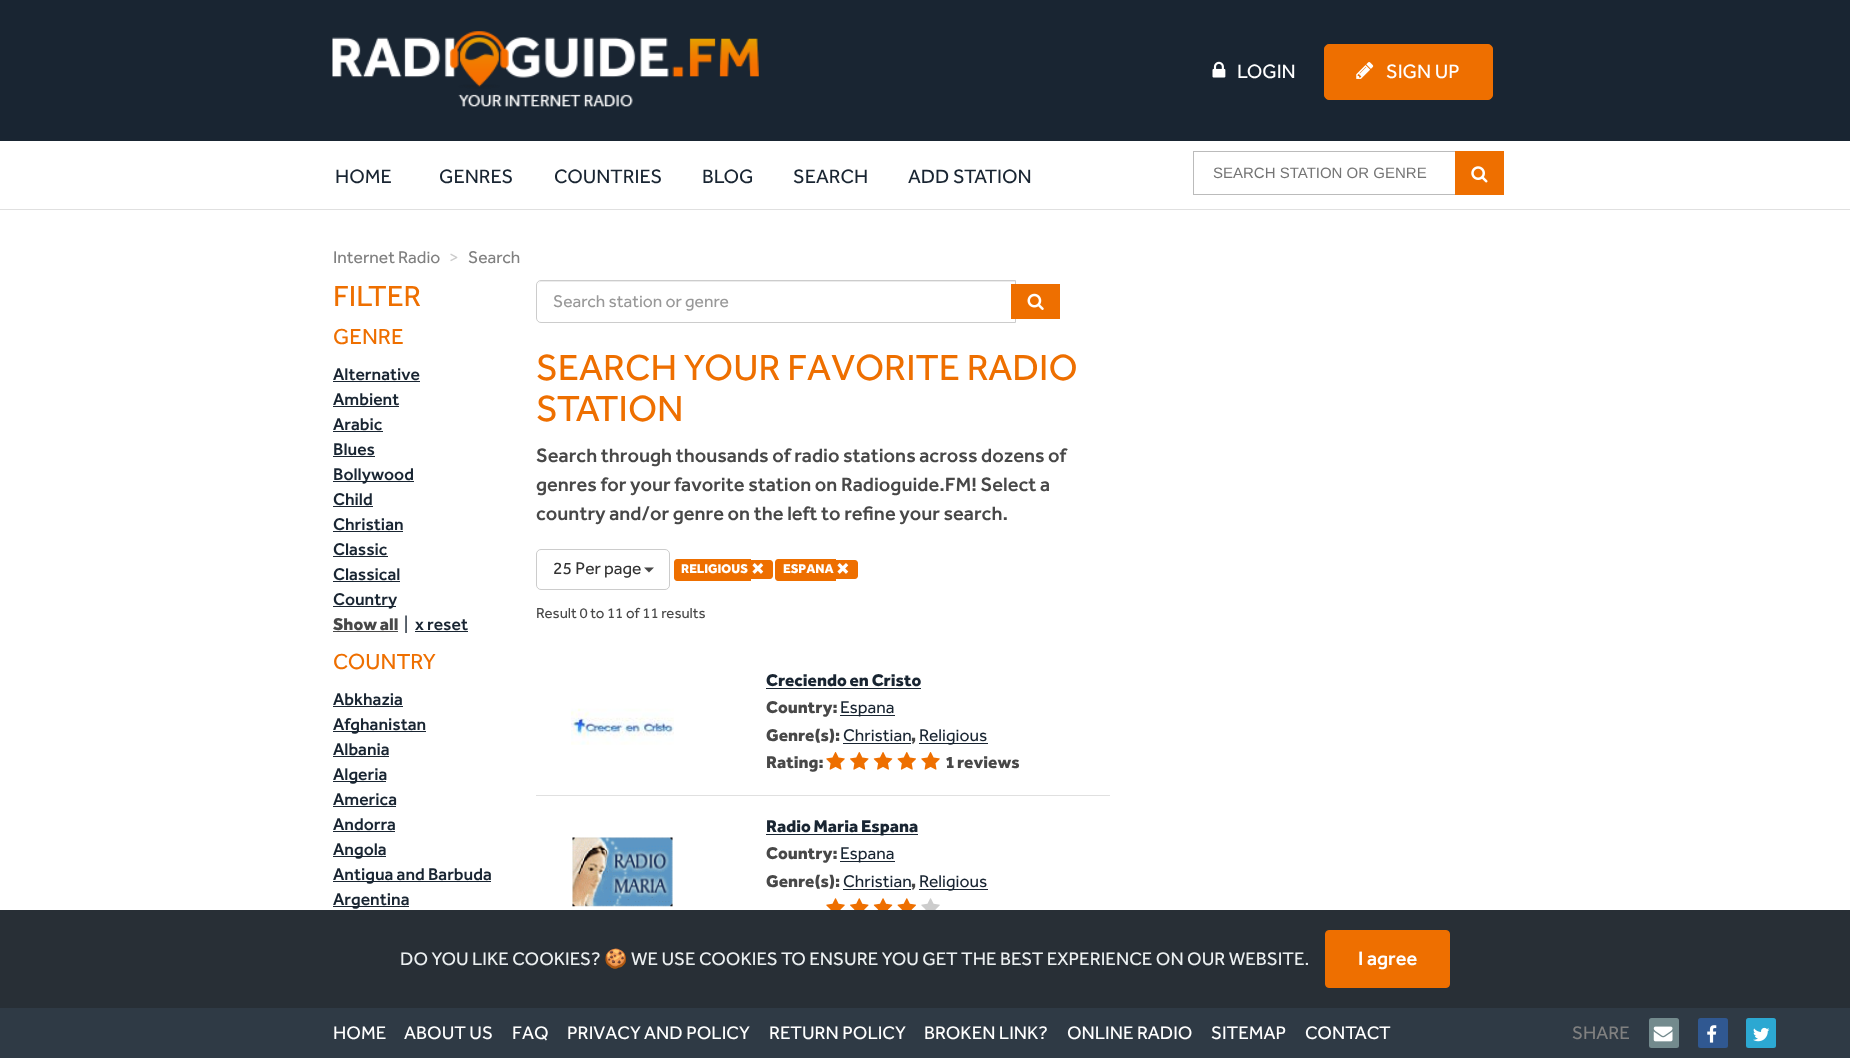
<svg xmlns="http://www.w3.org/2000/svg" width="1850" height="1058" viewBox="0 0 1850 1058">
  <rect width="100%" height="100%" fill="rgb(255,255,255)"/>
  <rect x="0" y="0" width="1850" height="141" fill="rgb(25,37,50)"/>
  <image x="332" y="31" width="427" height="76" href="pic1.png"/>
  <image x="1212" y="61" width="14" height="17" href="pic2.png"/>
  <text x="1237" y="78" font-family="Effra" font-size="20" fill="rgb(255,255,255)">LOGIN</text>
  <rect x="1324.5" y="44.5" width="168" height="55" rx="4.5" fill="rgb(238,111,0)" stroke="rgb(238,111,0)"/>
  <image x="1356" y="62" width="18" height="17" href="pic3.png"/>
  <text x="1386" y="78" font-family="Effra" font-size="20" fill="rgb(255,255,255)">SIGN UP</text>
  <rect x="0" y="209" width="1850" height="1" fill="rgb(224,224,224)"/>
  <g font-family="Effra" font-size="20" fill="rgb(25,37,50)">
    <text x="335" y="183">HOME</text>
    <text x="439" y="183">GENRES</text>
    <text x="554" y="183">COUNTRIES</text>
    <text x="702" y="183">BLOG</text>
    <text x="793" y="183">SEARCH</text>
    <text x="908" y="183">ADD STATION</text>
  </g>
  <rect x="1193.5" y="151.5" width="266" height="43" fill="none" stroke="rgb(187,187,187)"/>
  <text x="1213" y="178" font-family="Liberation Sans" font-size="15" fill="rgb(117,117,117)">SEARCH STATION OR GENRE</text>
  <rect x="1455" y="151" width="49" height="44" fill="rgb(238,111,0)"/>
  <image x="1471" y="166" width="17" height="17" href="pic4.png"/>
  <text x="333" y="263" font-family="Effra" font-size="17.5" fill="rgb(128,128,128)">Internet Radio</text>
  <text x="449" y="263" font-family="Effra" font-size="17.5" fill="rgb(204,204,204)">&gt;</text>
  <text x="468" y="263" font-family="Effra" font-size="17.5" fill="rgb(128,128,128)">Search</text>
  <text x="333" y="306" font-family="Effra" font-size="30" fill="rgb(238,111,0)">FILTER</text>
  <text x="333" y="344" font-family="Effra" font-size="22.5" fill="rgb(238,111,0)">GENRE</text>
  <text x="333" y="380" font-family="Effra" font-size="17.5" font-weight="500" fill="rgb(25,37,50)">Alternative</text>
  <rect x="333" y="381" width="87" height="1" fill="rgb(25,37,50)"/>
  <text x="333" y="405" font-family="Effra" font-size="17.5" font-weight="500" fill="rgb(25,37,50)">Ambient</text>
  <rect x="333" y="406" width="66" height="1" fill="rgb(25,37,50)"/>
  <text x="333" y="430" font-family="Effra" font-size="17.5" font-weight="500" fill="rgb(25,37,50)">Arabic</text>
  <rect x="333" y="431" width="50" height="1" fill="rgb(25,37,50)"/>
  <text x="333" y="455" font-family="Effra" font-size="17.5" font-weight="500" fill="rgb(25,37,50)">Blues</text>
  <rect x="333" y="456" width="42" height="1" fill="rgb(25,37,50)"/>
  <rect x="333" y="481" width="81" height="1" fill="rgb(25,37,50)"/>
  <g font-family="Effra" font-size="17.5" font-weight="500" fill="rgb(25,37,50)">
    <text>
      <tspan x="333" y="480">Bollywood</tspan>
      <tspan x="333" y="505">Child</tspan>
    </text>
  </g>
  <rect x="333" y="506" width="40" height="1" fill="rgb(25,37,50)"/>
  <text x="333" y="530" font-family="Effra" font-size="17.5" font-weight="500" fill="rgb(25,37,50)">Christian</text>
  <rect x="333" y="531" width="70" height="1" fill="rgb(25,37,50)"/>
  <text x="333" y="555" font-family="Effra" font-size="17.5" font-weight="500" fill="rgb(25,37,50)">Classic</text>
  <rect x="333" y="556" width="55" height="1" fill="rgb(25,37,50)"/>
  <text x="333" y="580" font-family="Effra" font-size="17.5" font-weight="500" fill="rgb(25,37,50)">Classical</text>
  <rect x="333" y="581" width="67" height="1" fill="rgb(25,37,50)"/>
  <rect x="333" y="606" width="63" height="1" fill="rgb(25,37,50)"/>
  <text x="333" y="605" font-family="Effra" font-size="17.5" font-weight="500" fill="rgb(25,37,50)">Country</text>
  <text x="333" y="630" font-family="Effra" font-size="17.5" font-weight="900" fill="rgb(72,72,72)">Show all</text>
  <rect x="333" y="631" width="65" height="1" fill="rgb(72,72,72)"/>
  <text x="404" y="630" font-family="Effra" font-size="17.5" fill="rgb(25,37,50)">|</text>
  <text x="415" y="630" font-family="Effra" font-size="17.5" font-weight="500" fill="rgb(25,37,50)">x reset</text>
  <rect x="415" y="631" width="53" height="1" fill="rgb(25,37,50)"/>
  <text x="333" y="669" font-family="Effra" font-size="22.5" fill="rgb(238,111,0)">COUNTRY</text>
  <text x="333" y="705" font-family="Effra" font-size="17.5" font-weight="500" fill="rgb(25,37,50)">Abkhazia</text>
  <rect x="333" y="706" width="70" height="1" fill="rgb(25,37,50)"/>
  <rect x="333" y="731" width="93" height="1" fill="rgb(25,37,50)"/>
  <g font-family="Effra" font-size="17.5" font-weight="500" fill="rgb(25,37,50)">
    <text>
      <tspan x="333" y="730">Afghanistan</tspan>
      <tspan x="333" y="755">Albania</tspan>
    </text>
  </g>
  <rect x="333" y="756" width="56" height="1" fill="rgb(25,37,50)"/>
  <rect x="333" y="781" width="53" height="1" fill="rgb(25,37,50)"/>
  <g font-family="Effra" font-size="17.5" font-weight="500" fill="rgb(25,37,50)">
    <text>
      <tspan x="333" y="780">Algeria</tspan>
      <tspan x="333" y="805">America</tspan>
    </text>
  </g>
  <rect x="333" y="806" width="63" height="1" fill="rgb(25,37,50)"/>
  <text x="333" y="830" font-family="Effra" font-size="17.5" font-weight="500" fill="rgb(25,37,50)">Andorra</text>
  <rect x="333" y="831" width="62" height="1" fill="rgb(25,37,50)"/>
  <rect x="333" y="856" width="53" height="1" fill="rgb(25,37,50)"/>
  <text x="333" y="855" font-family="Effra" font-size="17.5" font-weight="500" fill="rgb(25,37,50)">Angola</text>
  <rect x="333" y="881" width="158" height="1" fill="rgb(25,37,50)"/>
  <text x="333" y="880" font-family="Effra" font-size="17.5" font-weight="500" fill="rgb(25,37,50)">Antigua and Barbuda</text>
  <rect x="333" y="906" width="76" height="1" fill="rgb(25,37,50)"/>
  <text x="333" y="905" font-family="Effra" font-size="17.5" font-weight="500" fill="rgb(25,37,50)">Argentina</text>
  <path d="M541 282H1015V281H542C539 281 538 283 538 286C538 284 539 282 541 282Z" fill="rgb(236,236,236)"/>
  <path d="M541 280.5H1015.5V322.5H541C538.5 322.5 536.5 320.5 536.5 318V285C536.5 282.5 538.5 280.5 541 280.5Z" fill="none" stroke="rgb(204,204,204)"/>
  <text x="553" y="307" font-family="Effra" font-size="17.5" fill="rgb(153,153,153)">Search station or genre</text>
  <rect x="1011" y="284" width="49" height="35" fill="rgb(238,111,0)"/>
  <image x="1027" y="293" width="17" height="17" href="pic5.png"/>
  <g font-family="Effra" font-size="37.5" fill="rgb(238,111,0)">
    <text>
      <tspan x="536" y="380">SEARCH YOUR FAVORITE RADIO</tspan>
      <tspan x="536" y="421">STATION</tspan>
    </text>
  </g>
  <g font-family="Effra" font-size="20" font-weight="500" fill="rgb(72,72,72)">
    <text>
      <tspan x="536" y="462">Search through thousands of radio stations across dozens of</tspan>
      <tspan x="536" y="491">genres for your favorite station on Radioguide.FM! Select a</tspan>
      <tspan x="536" y="520">country and/or genre on the left to refine your search.</tspan>
    </text>
  </g>
  <rect x="536.5" y="549.5" width="133" height="40" rx="4.5" fill="none" stroke="rgb(204,204,204)"/>
  <text x="553" y="574" font-family="Effra" font-size="17.5" fill="rgb(51,51,51)">25 Per page</text>
  <path d="M644 567.5H654L649 572.5Z" fill="rgb(72,72,72)"/>
  <path d="M677 559H751V581H677C675.5 581 674 579.5 674 578V562C674 560.5 675.5 559 677 559Z" fill="rgb(238,111,0)"/>
  <path d="M751 560H770C771.5 560 773 561.5 773 563V576C773 577.5 771.5 579 770 579H751Z" fill="rgb(238,111,0)"/>
  <text x="681" y="573" font-family="Effra" font-size="13" font-weight="900" fill="rgb(255,255,255)">RELIGIOUS</text>
  <image x="752" y="563" width="12" height="11" href="pic6.png"/>
  <path d="M778 559H836V581H778C776.5 581 775 579.5 775 578V562C775 560.5 776.5 559 778 559Z" fill="rgb(238,111,0)"/>
  <path d="M836 560H855C856.5 560 858 561.5 858 563V576C858 577.5 856.5 579 855 579H836Z" fill="rgb(238,111,0)"/>
  <text x="783" y="573" font-family="Effra" font-size="13" font-weight="900" fill="rgb(255,255,255)">ESPANA</text>
  <image x="837" y="563" width="12" height="11" href="pic6.png"/>
  <text x="536" y="618" font-family="Effra" font-size="15" fill="rgb(72,72,72)">Result 0 to 11 of 11 results</text>
  <rect x="536" y="795" width="574" height="1" fill="rgb(224,224,224)"/>
  <image x="571" y="708" width="103" height="37" href="pic7.png"/>
  <text x="766" y="686" font-family="Effra" font-size="17.5" font-weight="900" fill="rgb(25,37,50)">Creciendo en Cristo</text>
  <rect x="766" y="688" width="155" height="1" fill="rgb(25,37,50)"/>
  <text x="766" y="713" font-family="Effra" font-size="17.5" font-weight="900" fill="rgb(72,72,72)">Country:</text>
  <rect x="840" y="715" width="55" height="1" fill="rgb(25,37,50)"/>
  <text x="840" y="713" font-family="Effra" font-size="17.5" fill="rgb(25,37,50)">Espana</text>
  <text x="766" y="741" font-family="Effra" font-size="17.5" font-weight="900" fill="rgb(72,72,72)">Genre(s):</text>
  <text x="843" y="741" font-family="Effra" font-size="17.5" fill="rgb(25,37,50)">Christian</text>
  <rect x="843" y="743" width="68" height="1" fill="rgb(25,37,50)"/>
  <text x="911" y="741" font-family="Effra" font-size="17.5" font-weight="900" fill="rgb(72,72,72)">,</text>
  <rect x="919" y="743" width="69" height="1" fill="rgb(25,37,50)"/>
  <text x="919" y="741" font-family="Effra" font-size="17.5" fill="rgb(25,37,50)">Religious</text>
  <text x="766" y="768" font-family="Effra" font-size="17.5" font-weight="900" fill="rgb(72,72,72)">Rating:</text>
  <image x="826" y="752" width="19" height="18" href="pic8.png"/>
  <image x="850" y="752" width="19" height="18" href="pic9.png"/>
  <image x="873" y="752" width="20" height="18" href="pic10.png"/>
  <image x="897" y="752" width="19" height="18" href="pic11.png"/>
  <image x="921" y="752" width="19" height="18" href="pic8.png"/>
  <text x="946" y="768" font-family="Effra" font-size="17.5" font-weight="900" fill="rgb(72,72,72)">1 reviews</text>
  <image x="572" y="837" width="101" height="70" href="pic12.png"/>
  <rect x="766" y="834" width="152" height="1" fill="rgb(25,37,50)"/>
  <text x="766" y="832" font-family="Effra" font-size="17.5" font-weight="900" fill="rgb(25,37,50)">Radio Maria Espana</text>
  <text x="766" y="859" font-family="Effra" font-size="17.5" font-weight="900" fill="rgb(72,72,72)">Country:</text>
  <rect x="840" y="861" width="55" height="1" fill="rgb(25,37,50)"/>
  <text x="840" y="859" font-family="Effra" font-size="17.5" fill="rgb(25,37,50)">Espana</text>
  <text x="766" y="887" font-family="Effra" font-size="17.5" font-weight="900" fill="rgb(72,72,72)">Genre(s):</text>
  <text x="843" y="887" font-family="Effra" font-size="17.5" fill="rgb(25,37,50)">Christian</text>
  <rect x="843" y="889" width="68" height="1" fill="rgb(25,37,50)"/>
  <text x="911" y="887" font-family="Effra" font-size="17.5" font-weight="900" fill="rgb(72,72,72)">,</text>
  <rect x="919" y="889" width="69" height="1" fill="rgb(25,37,50)"/>
  <text x="919" y="887" font-family="Effra" font-size="17.5" fill="rgb(25,37,50)">Religious</text>
  <image x="826" y="898" width="19" height="12" href="pic13.png"/>
  <image x="850" y="898" width="19" height="12" href="pic14.png"/>
  <image x="873" y="898" width="20" height="12" href="pic15.png"/>
  <image x="897" y="898" width="19" height="12" href="pic16.png"/>
  <image x="921" y="898" width="19" height="12" href="pic17.png"/>
  <rect x="0" y="1008" width="1850" height="50" fill="rgb(47,58,69)"/>
  <rect x="0" y="910" width="1850" height="98" fill="rgb(40,47,54)"/>
  <text x="400" y="965" font-family="Effra" font-size="18.75" fill="rgb(236,240,241)">DO YOU LIKE COOKIES?</text>
  <text x="604" y="965" font-family="Noto Color Emoji" font-size="18.75" fill="rgb(236,240,241)">🍪</text>
  <text x="631" y="965" font-family="Effra" font-size="18.75" fill="rgb(236,240,241)">WE USE COOKIES TO ENSURE YOU GET THE BEST EXPERIENCE ON OUR WEBSITE.</text>
  <rect x="1325.5" y="930.5" width="124" height="57" rx="3.5" fill="rgb(238,111,0)" stroke="rgb(238,111,0)"/>
  <text x="1358" y="965" font-family="Effra" font-size="20" font-weight="500" fill="rgb(255,255,255)">I agree</text>
  <g font-family="Effra" font-size="18.75" fill="rgb(255,255,255)">
    <text x="333" y="1039">HOME</text>
    <text x="404" y="1039">ABOUT US</text>
    <text x="512" y="1039">FAQ</text>
    <text x="567" y="1039">PRIVACY AND POLICY</text>
    <text x="769" y="1039">RETURN POLICY</text>
    <text x="924" y="1039">BROKEN LINK?</text>
    <text x="1067" y="1039">ONLINE RADIO</text>
    <text x="1211" y="1039">SITEMAP</text>
    <text x="1305" y="1039">CONTACT</text>
  </g>
  <text x="1572" y="1039" font-family="Effra" font-size="18.75" fill="rgb(128,128,128)">SHARE</text>
  <rect x="1649" y="1018" width="30" height="30" rx="2.5" fill="rgb(115,138,141)"/>
  <image x="1653" y="1026" width="20" height="16" href="pic18.png"/>
  <rect x="1698" y="1018" width="30" height="30" rx="2.5" fill="rgb(48,88,145)"/>
  <image x="1707" y="1025" width="10" height="18" href="pic19.png"/>
  <rect x="1746" y="1018" width="30" height="30" rx="2.5" fill="rgb(44,168,210)"/>
  <image x="1753" y="1027" width="17" height="15" href="pic20.png"/>
</svg>
